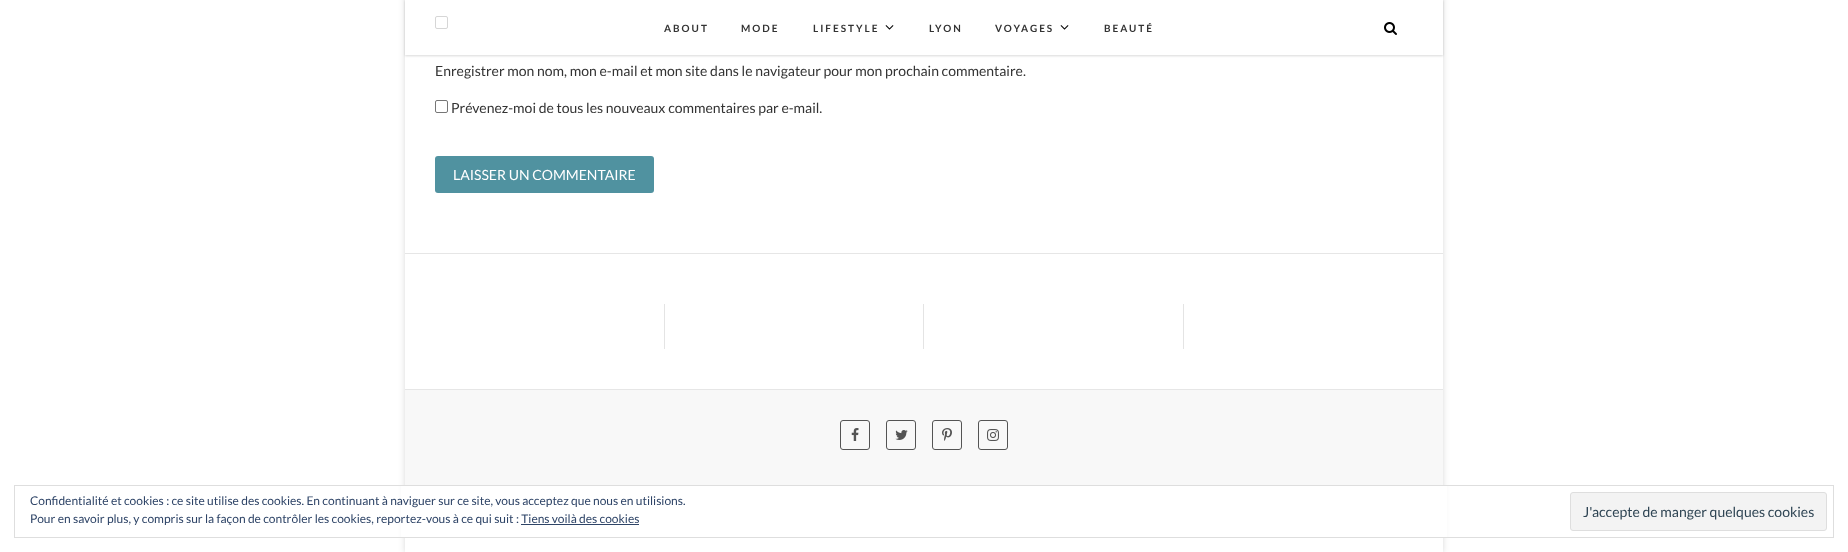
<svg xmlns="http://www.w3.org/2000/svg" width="1848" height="552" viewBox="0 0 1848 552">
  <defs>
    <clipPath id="clip1"><path d="M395 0H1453V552H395ZM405-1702H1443V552H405Z" clip-rule="evenodd"/></clipPath>
    <clipPath id="clip2"><path d="M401 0H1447V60H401ZM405 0H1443V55H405Z" clip-rule="evenodd"/></clipPath>
  </defs>
  <rect width="100%" height="100%" fill="rgb(255,255,255)"/>
  <g clip-path="url(#clip1)">
    <rect x="405" y="-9" width="1038" height="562" fill="rgba(0,0,0,0.15)" filter="blur(3px)"/>
  </g>
  <rect x="435.5" y="16.5" width="12" height="12" rx="1.5" fill="none" stroke="rgb(214,214,214)"/>
  <g clip-path="url(#clip2)">
    <rect x="405" y="1" width="1038" height="55" fill="rgba(0,0,0,0.15)" filter="blur(1px)"/>
  </g>
  <g font-family="Lato" font-size="10" font-weight="bold" letter-spacing="2" fill="rgb(51,51,51)">
    <text x="664" y="32">ABOUT</text>
    <text x="741" y="32">MODE</text>
    <text x="813" y="32">LIFESTYLE</text>
  </g>
  <image x="885" y="25" width="9" height="5" href="pic1.png"/>
  <g font-family="Lato" font-size="10" font-weight="bold" letter-spacing="2" fill="rgb(51,51,51)">
    <text x="929" y="32">LYON</text>
    <text x="995" y="32">VOYAGES</text>
  </g>
  <image x="1060" y="25" width="9" height="5" href="pic1.png"/>
  <text x="1104" y="32" font-family="Lato" font-size="10" font-weight="bold" letter-spacing="2" fill="rgb(51,51,51)">BEAUTÉ</text>
  <image x="1384" y="22" width="13" height="13" href="pic2.png"/>
  <text x="435" y="76" font-family="Lato" font-size="14" fill="rgb(51,51,51)">Enregistrer mon nom, mon e-mail et mon site dans le navigateur pour mon prochain commentaire.</text>
  <rect x="435.5" y="100.5" width="12" height="12" rx="1.5" fill="none" stroke="rgb(118,118,118)"/>
  <text x="451" y="113" font-family="Lato" font-size="14" fill="rgb(51,51,51)">Prévenez-moi de tous les nouveaux commentaires par e-mail.</text>
  <rect x="435" y="156" width="219" height="37" rx="3" fill="rgb(80,146,160)"/>
  <text x="453" y="180" font-family="Lato" font-size="14" fill="rgb(255,255,255)">LAISSER UN COMMENTAIRE</text>
  <rect x="405" y="253" width="1038" height="1" fill="rgb(230,230,230)"/>
  <rect x="405" y="389" width="1038" height="1" fill="rgb(230,230,230)"/>
  <rect x="664" y="304" width="1" height="45" fill="rgb(228,228,228)"/>
  <rect x="923" y="304" width="1" height="45" fill="rgb(228,228,228)"/>
  <rect x="1183" y="304" width="1" height="45" fill="rgb(228,228,228)"/>
  <rect x="405" y="390" width="1038" height="95" fill="rgb(248,248,248)"/>
  <rect x="840.5" y="420.5" width="29" height="29" rx="2.5" fill="none" stroke="rgb(84,84,84)"/>
  <image x="851" y="428" width="8" height="13" href="pic3.png"/>
  <rect x="886.5" y="420.5" width="29" height="29" rx="2.5" fill="none" stroke="rgb(84,84,84)"/>
  <image x="895" y="430" width="13" height="10" href="pic4.png"/>
  <rect x="932.5" y="420.5" width="29" height="29" rx="2.5" fill="none" stroke="rgb(84,84,84)"/>
  <image x="942" y="428" width="10" height="13" href="pic5.png"/>
  <rect x="978.5" y="420.5" width="29" height="29" rx="2.5" fill="none" stroke="rgb(84,84,84)"/>
  <image x="987" y="429" width="12" height="12" href="pic6.png"/>
  <rect x="401" y="486" width="1046" height="51" fill="rgb(255,255,255)"/>
  <rect x="14.5" y="485.5" width="1819" height="52" fill="none" stroke="rgb(222,222,222)"/>
  <g font-family="Lato" font-size="12" fill="rgb(46,68,103)">
    <text>
      <tspan x="30" y="505">Confidentialité et cookies : ce site utilise des cookies. En continuant à naviguer sur ce site, vous acceptez que nous en utilisions.</tspan>
      <tspan x="30" y="523">Pour en savoir plus, y compris sur la façon de contrôler les cookies, reportez-vous à ce qui suit : Tiens voilà des cookies</tspan>
    </text>
  </g>
  <rect x="1570.5" y="492.5" width="256" height="38" rx="2.5" fill="rgb(243,243,243)" stroke="rgb(222,222,222)"/>
  <text x="1583" y="517" font-family="Lato" font-size="14" fill="rgb(46,68,83)">J'accepte de manger quelques cookies</text>
  <rect x="521" y="524" width="118" height="1" fill="rgb(46,68,103)"/>
</svg>
